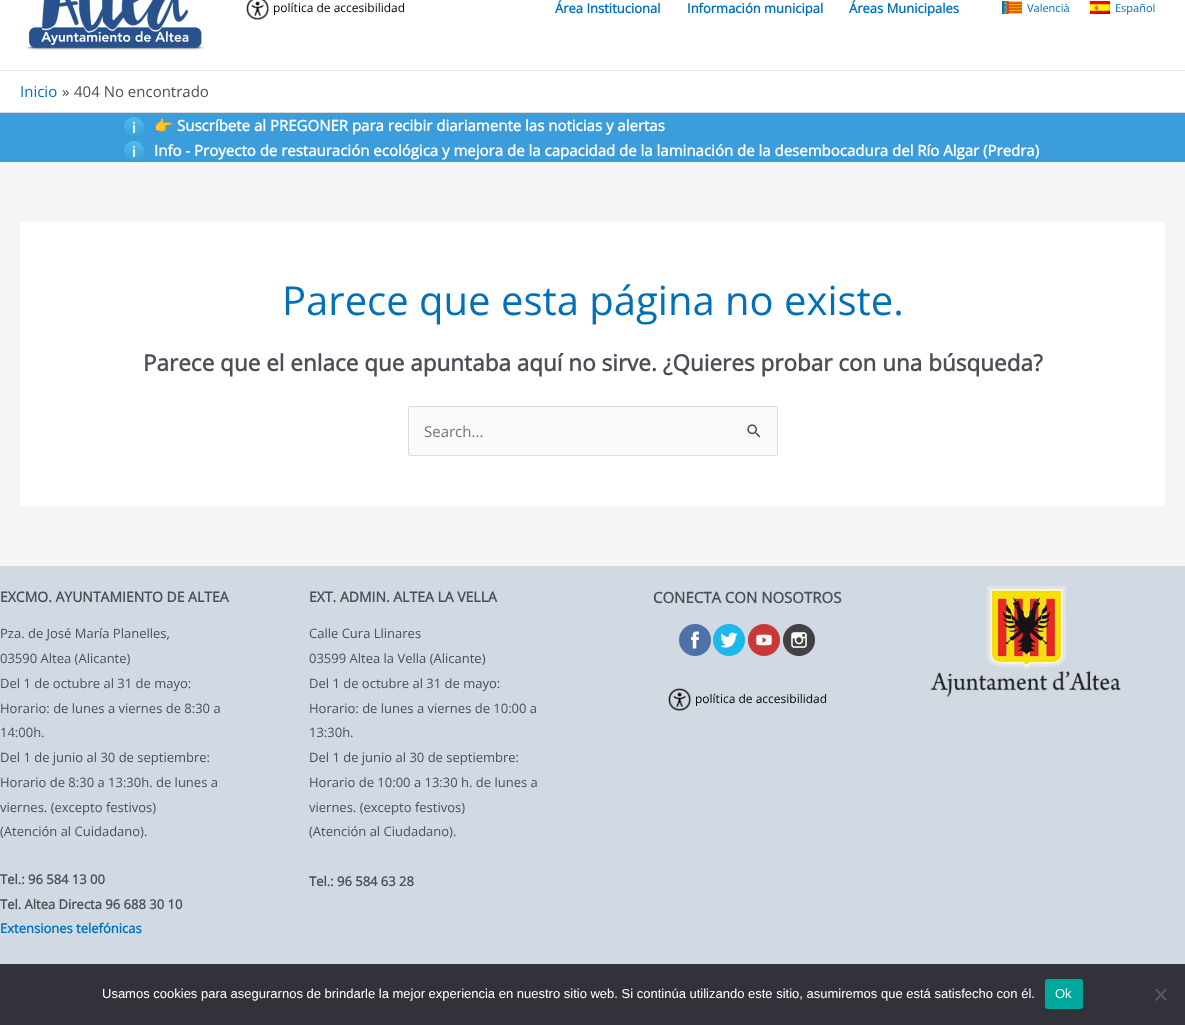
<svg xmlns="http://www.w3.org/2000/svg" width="1185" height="1025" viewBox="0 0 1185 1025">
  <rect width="100%" height="100%" fill="rgb(245,245,245)"/>
  <rect x="0" y="0" width="1185" height="70" fill="rgb(255,255,255)"/>
  <rect x="0" y="70" width="1185" height="1" fill="rgb(229,229,229)"/>
  <image x="25" y="0" width="180" height="50" href="pic1.png"/>
  <image x="246" y="0" width="23" height="20" href="pic2.png"/>
  <text x="273" y="12" font-family="Open Sans" font-size="12" fill="rgb(0,0,0)">política de accesibilidad</text>
  <g font-family="Open Sans" font-size="13" font-weight="bold" fill="rgb(1,112,185)">
    <text x="555" y="13">Área Institucional</text>
    <text x="687" y="13">Información municipal</text>
    <text x="849" y="13">Áreas Municipales</text>
  </g>
  <image x="1002" y="1" width="20" height="13" href="pic3.png"/>
  <text x="1027" y="12" font-family="Open Sans" font-size="11" fill="rgb(1,112,185)">Valencià</text>
  <image x="1090" y="1" width="20" height="13" href="pic4.png"/>
  <text x="1115" y="12" font-family="Open Sans" font-size="11" fill="rgb(1,112,185)">Español</text>
  <rect x="0" y="71" width="1185" height="41" fill="rgb(255,255,255)"/>
  <rect x="0" y="112" width="1185" height="1" fill="rgb(221,221,221)"/>
  <text x="20" y="97" font-family="Open Sans" font-size="15" fill="rgb(1,112,185)">Inicio</text>
  <g font-family="Open Sans" font-size="15" fill="rgb(75,79,88)">
    <text x="62" y="97">»</text>
    <text x="74" y="97">404 No encontrado</text>
  </g>
  <rect x="0" y="113" width="1185" height="49" fill="rgb(59,157,219)"/>
  <image x="124" y="117" width="20" height="20" href="pic5.png"/>
  <text x="154" y="131" font-family="Noto Color Emoji" font-size="15" font-weight="bold" fill="rgb(255,255,255)">👉</text>
  <text x="177" y="131" font-family="Open Sans" font-size="15" font-weight="bold" fill="rgb(255,255,255)">Suscríbete al PREGONER para recibir diariamente las noticias y alertas</text>
  <image x="124" y="141" width="20" height="20" href="pic5.png"/>
  <text x="154" y="156" font-family="Open Sans" font-size="15" font-weight="bold" fill="rgb(255,255,255)">Info - Proyecto de restauración ecológica y mejora de la capacidad de la laminación de la desembocadura del Río Algar (Predra)</text>
  <rect x="20" y="222" width="1145" height="284" fill="rgb(255,255,255)"/>
  <text x="282" y="315" font-family="Open Sans" font-size="40" fill="rgb(1,112,185)">Parece que esta página no existe.</text>
  <text x="143" y="371" font-family="Open Sans" font-size="22.5" font-weight="bold" fill="rgb(75,79,88)">Parece que el enlace que apuntaba aquí no sirve. ¿Quieres probar con una búsqueda?</text>
  <rect x="408.5" y="406.5" width="369" height="49" rx="1.5" fill="rgb(250,250,250)" stroke="rgb(221,221,221)"/>
  <text x="424" y="437" font-family="Open Sans" font-size="15" fill="rgb(117,117,117)">Search...</text>
  <image x="747" y="424" width="14" height="14" href="pic6.png"/>
  <rect x="0" y="566" width="1185" height="398" fill="rgb(209,217,227)"/>
  <text x="0" y="602" font-family="Open Sans" font-size="14" font-weight="bold" fill="rgb(75,79,88)">EXCMO. AYUNTAMIENTO DE ALTEA</text>
  <g font-family="Open Sans" font-size="13" fill="rgb(75,79,88)">
    <text>
      <tspan x="0" y="638">Pza. de José María Planelles,</tspan>
      <tspan x="0" y="663">03590 Altea (Alicante)</tspan>
      <tspan x="0" y="688">Del 1 de octubre al 31 de mayo:</tspan>
      <tspan x="0" y="713">Horario: de lunes a viernes de 8:30 a</tspan>
      <tspan x="0" y="737">14:00h.</tspan>
      <tspan x="0" y="762">Del 1 de junio al 30 de septiembre:</tspan>
      <tspan x="0" y="787">Horario de 8:30 a 13:30h. de lunes a</tspan>
      <tspan x="0" y="812">viernes. (excepto festivos)</tspan>
      <tspan x="0" y="836">(Atención al Cuidadano).</tspan>
    </text>
  </g>
  <g font-family="Open Sans" font-size="13" font-weight="bold" fill="rgb(75,79,88)">
    <text>
      <tspan x="0" y="884">Tel.: 96 584 13 00</tspan>
      <tspan x="0" y="909">Tel. Altea Directa 96 688 30 10</tspan>
    </text>
  </g>
  <text x="0" y="933" font-family="Open Sans" font-size="13" font-weight="bold" fill="rgb(1,112,185)">Extensiones telefónicas</text>
  <text x="309" y="602" font-family="Open Sans" font-size="14" font-weight="bold" fill="rgb(75,79,88)">EXT. ADMIN. ALTEA LA VELLA</text>
  <g font-family="Open Sans" font-size="13" fill="rgb(75,79,88)">
    <text>
      <tspan x="309" y="638">Calle Cura Llinares</tspan>
      <tspan x="309" y="663">03599 Altea la Vella (Alicante)</tspan>
      <tspan x="309" y="688">Del 1 de octubre al 31 de mayo:</tspan>
      <tspan x="309" y="713">Horario: de lunes a viernes de 10:00 a</tspan>
      <tspan x="309" y="737">13:30h.</tspan>
      <tspan x="309" y="762">Del 1 de junio al 30 de septiembre:</tspan>
      <tspan x="309" y="787">Horario de 10:00 a 13:30 h. de lunes a</tspan>
      <tspan x="309" y="812">viernes. (excepto festivos)</tspan>
      <tspan x="309" y="836">(Atención al Ciudadano).</tspan>
    </text>
  </g>
  <text x="309" y="886" font-family="Open Sans" font-size="13" font-weight="bold" fill="rgb(75,79,88)">Tel.: 96 584 63 28</text>
  <text x="653" y="603" font-family="Open Sans" font-size="15" font-weight="bold" fill="rgb(75,79,88)">CONECTA CON NOSOTROS</text>
  <image x="679" y="624" width="32" height="32" href="pic7.png"/>
  <image x="713" y="624" width="32" height="32" href="pic8.png"/>
  <image x="748" y="624" width="32" height="32" href="pic9.png"/>
  <image x="783" y="624" width="32" height="32" href="pic10.png"/>
  <image x="668" y="688" width="23" height="23" href="pic11.png"/>
  <text x="695" y="703" font-family="Open Sans" font-size="12" fill="rgb(0,0,0)">política de accesibilidad</text>
  <image x="930" y="586" width="191" height="111" href="pic12.png"/>
  <rect x="0" y="964" width="1185" height="61" fill="rgb(50,50,58)"/>
  <text x="102" y="998" font-family="Liberation Sans" font-size="13" fill="rgb(255,255,255)">Usamos cookies para asegurarnos de brindarle la mejor experiencia en nuestro sitio web. Si continúa utilizando este sitio, asumiremos que está satisfecho con él.</text>
  <rect x="1045" y="979" width="38" height="30" rx="3" fill="rgb(0,169,157)"/>
  <text x="1055" y="998" font-family="Liberation Sans" font-size="13" fill="rgb(255,255,255)">Ok</text>
  <path d="M1165.5 988.5L1167 990L1156.5 1001L1155 999.5Z" fill="rgb(89,89,93)"/>
  <path d="M1155 990L1156.5 988.5L1167 999.5L1165.5 1001Z" fill="rgb(89,89,93)"/>
</svg>
